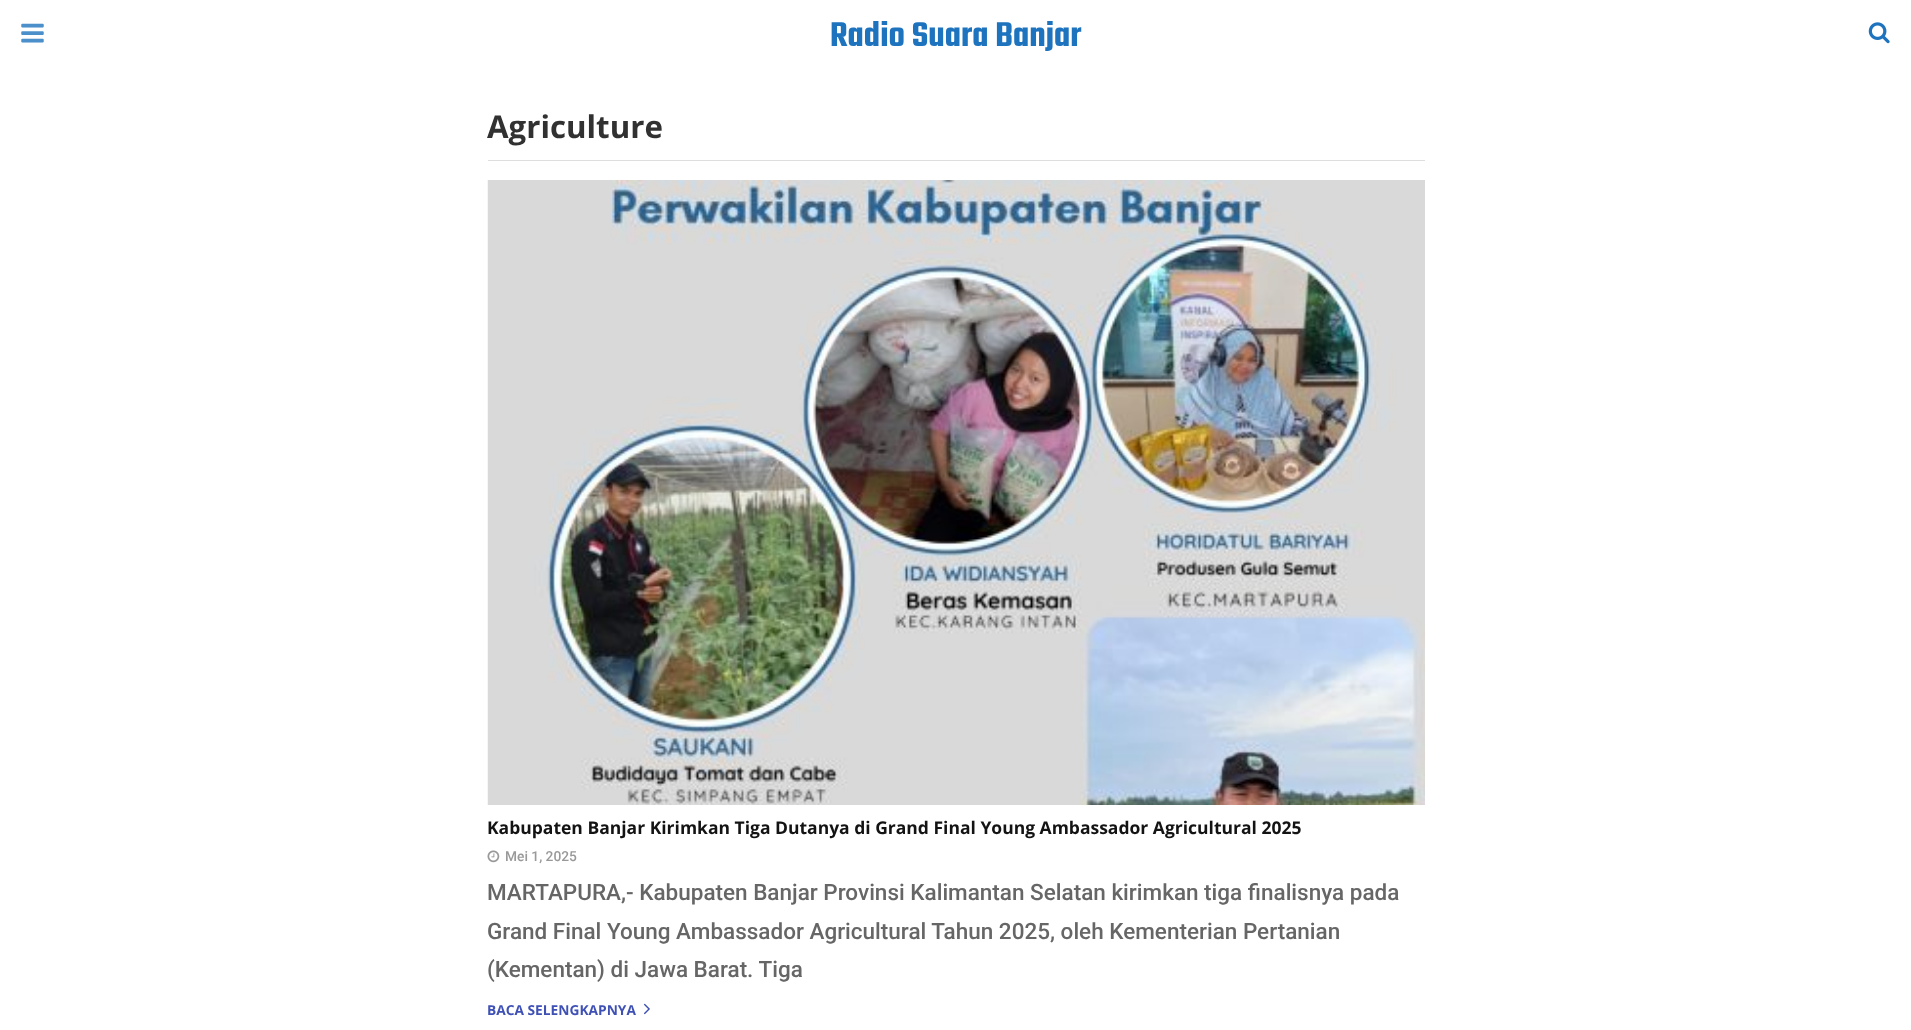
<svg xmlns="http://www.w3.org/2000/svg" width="1911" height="1030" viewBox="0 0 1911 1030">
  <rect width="100%" height="100%" fill="rgb(255,255,255)"/>
  <image x="21" y="23" width="23" height="20" href="pic1.png"/>
  <text x="830" y="46" font-family="Teko" font-size="37.5" font-weight="600" fill="rgb(30,115,190)">Radio Suara Banjar</text>
  <image x="1868" y="22" width="22" height="22" href="pic2.png"/>
  <rect x="488" y="160" width="937" height="1" fill="rgb(222,222,222)"/>
  <text x="487" y="138" font-family="Open Sans" font-size="31.25" font-weight="bold" fill="rgb(49,49,49)">Agriculture</text>
  <image x="487" y="180" width="938" height="625" href="pic3.png"/>
  <text x="487" y="834" font-family="Open Sans" font-size="17.5" font-weight="bold" fill="rgb(19,19,19)">Kabupaten Banjar Kirimkan Tiga Dutanya di Grand Final Young Ambassador Agricultural 2025</text>
  <image x="487" y="850" width="13" height="13" href="pic4.png"/>
  <text x="505" y="861" font-family="Roboto" font-size="13.75" font-weight="500" fill="rgb(153,153,153)">Mei 1, 2025</text>
  <g font-family="Roboto" font-size="22.5" font-weight="500" fill="rgb(102,102,102)">
    <text>
      <tspan x="487" y="900">MARTAPURA,- Kabupaten Banjar Provinsi Kalimantan Selatan kirimkan tiga finalisnya pada</tspan>
      <tspan x="487" y="939">Grand Final Young Ambassador Agricultural Tahun 2025, oleh Kementerian Pertanian</tspan>
      <tspan x="487" y="977">(Kementan) di Jawa Barat. Tiga</tspan>
    </text>
  </g>
  <text x="487" y="1015" font-family="Open Sans" font-size="13.75" font-weight="bold" fill="rgb(63,81,181)">BACA SELENGKAPNYA</text>
  <image x="643" y="1003" width="7" height="12" href="pic5.png"/>
</svg>
